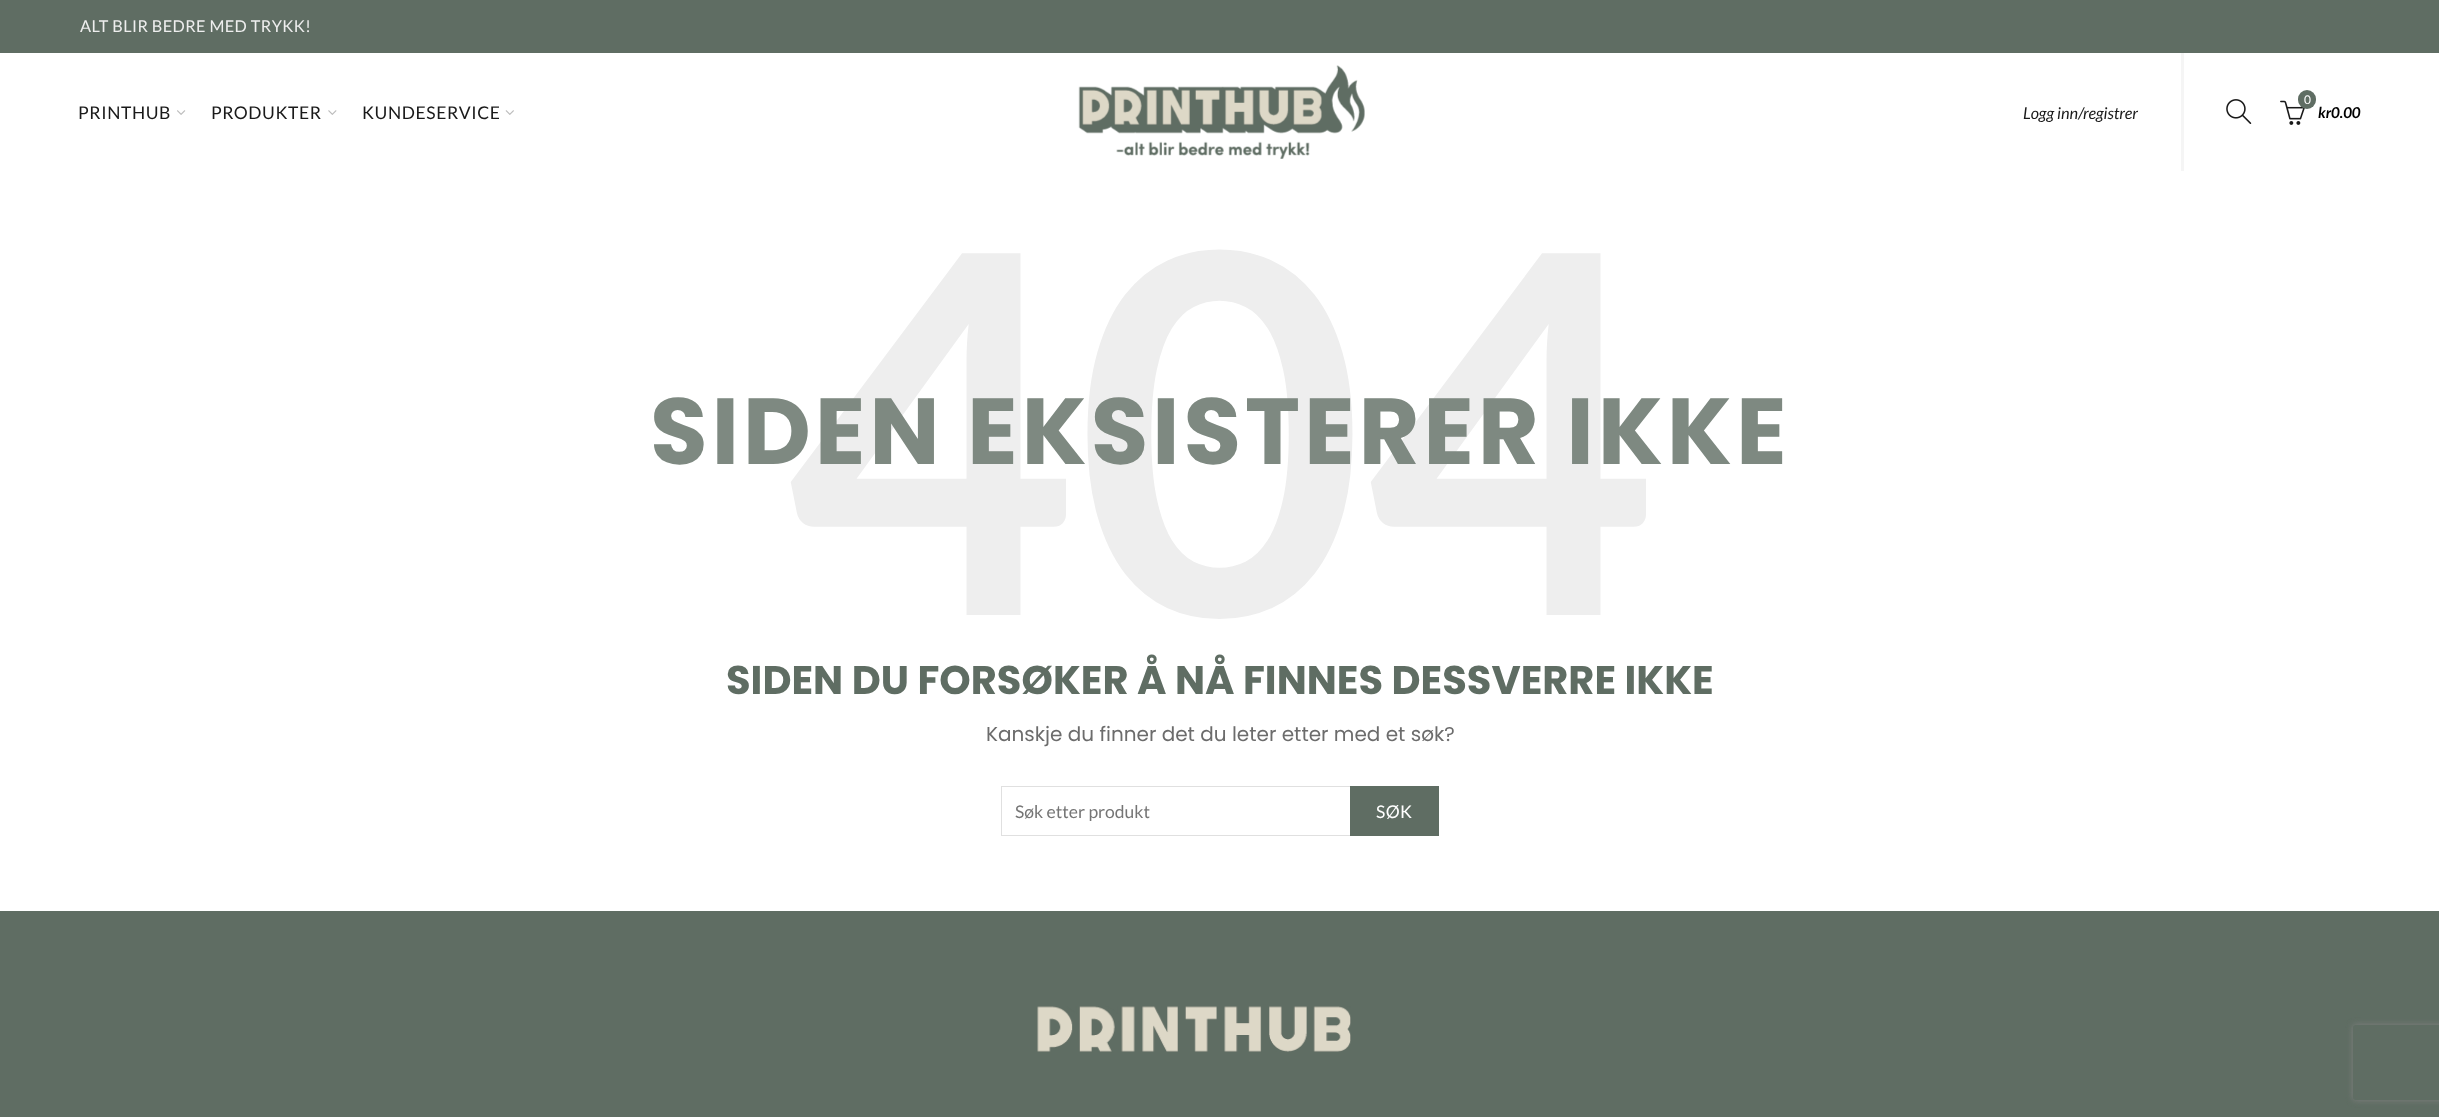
<svg xmlns="http://www.w3.org/2000/svg" width="2439" height="1117" viewBox="0 0 2439 1117">
  <defs>
    <clipPath id="clip1"><path d="M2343 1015H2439V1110H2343ZM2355.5 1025H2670.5C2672 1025 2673 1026 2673 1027.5V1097.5C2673 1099 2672 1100 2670.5 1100H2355.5C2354 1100 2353 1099 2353 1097.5V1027.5C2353 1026 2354 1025 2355.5 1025Z" clip-rule="evenodd"/></clipPath>
  </defs>
  <rect width="100%" height="100%" fill="rgb(255,255,255)"/>
  <rect x="0" y="0" width="2439" height="53" fill="rgb(95,109,99)"/>
  <text x="80" y="32" font-family="Lato" font-size="16.25" letter-spacing="0.4" fill="rgb(238,238,238)">ALT BLIR BEDRE MED TRYKK!</text>
  <text x="78" y="119" font-family="Lato" font-size="17.5" letter-spacing="0.6" fill="rgb(26,26,26)">PRINTHUB</text>
  <image x="177" y="110" width="9" height="5" href="pic1.png"/>
  <text x="211" y="119" font-family="Lato" font-size="17.5" letter-spacing="0.6" fill="rgb(26,26,26)">PRODUKTER</text>
  <image x="328" y="110" width="9" height="5" href="pic2.png"/>
  <text x="362" y="119" font-family="Lato" font-size="17.5" letter-spacing="0.6" fill="rgb(26,26,26)">KUNDESERVICE</text>
  <image x="505" y="110" width="9" height="5" href="pic3.png"/>
  <image x="1078" y="65" width="287" height="94" href="pic4.png"/>
  <rect x="2181" y="53" width="3" height="118" fill="rgb(245,245,245)"/>
  <text x="2023" y="119" font-family="Lato" font-size="16.25" font-style="italic" fill="rgb(26,26,26)">Logg inn/registrer</text>
  <image x="2226" y="99" width="26" height="25" href="pic5.png"/>
  <image x="2280" y="100" width="25" height="25" href="pic6.png"/>
  <rect x="2298" y="90" width="18" height="19" rx="9" fill="rgb(95,109,99)"/>
  <text x="2304" y="104" font-family="Lato" font-size="12" fill="rgb(255,255,255)">0</text>
  <text x="2318" y="118" font-family="Lato" font-size="15" font-weight="bold" font-style="italic" fill="rgb(0,0,0)">kr0.00</text>
  <text x="785" y="615" font-family="Lato" font-size="500" font-weight="bold" fill="rgb(238,238,238)">404</text>
  <text x="650" y="464" font-family="Poppins" font-size="93.75" font-weight="bold" letter-spacing="3.75" fill="rgb(126,137,129)">SIDEN EKSISTERER IKKE</text>
  <text x="726" y="694" font-family="Poppins" font-size="40" font-weight="bold" fill="rgb(95,109,99)">SIDEN DU FORSØKER Å NÅ FINNES DESSVERRE IKKE</text>
  <text x="986" y="741" font-family="Poppins" font-size="20" fill="rgb(108,108,108)">Kanskje du finner det du leter etter med et søk?</text>
  <rect x="1001.5" y="786.5" width="437" height="49" fill="none" stroke="rgb(224,224,224)"/>
  <text x="1015" y="818" font-family="Lato" font-size="17.5" fill="rgb(117,117,117)">Søk etter produkt</text>
  <rect x="1350" y="786" width="89" height="50" fill="rgb(95,109,99)"/>
  <text x="1376" y="818" font-family="Lato" font-size="17.5" letter-spacing="0.4" fill="rgb(255,255,255)">SØK</text>
  <rect x="0" y="911" width="2439" height="206" fill="rgb(95,109,99)"/>
  <image x="1037" y="1006" width="314" height="46" href="pic7.png"/>
  <g clip-path="url(#clip1)">
    <rect x="2353" y="1025" width="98" height="75" rx="2.5" fill="rgb(128,128,128)" filter="blur(3px)"/>
  </g>
</svg>
